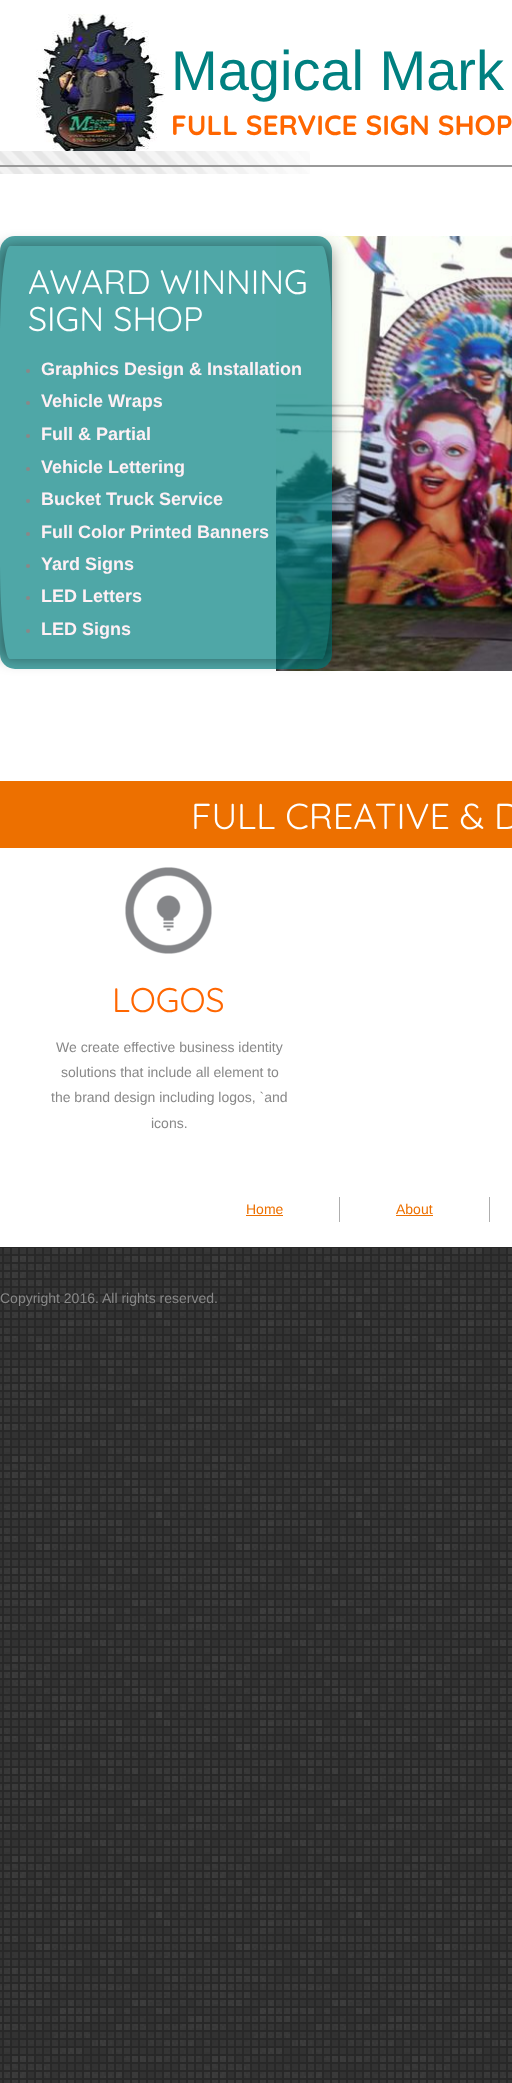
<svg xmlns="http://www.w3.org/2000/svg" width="512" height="2083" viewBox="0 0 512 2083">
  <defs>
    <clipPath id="clip1"><path d="M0 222H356V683H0ZM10 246H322C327.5 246 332 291 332 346V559C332 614 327.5 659 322 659H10C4.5 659 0 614 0 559V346C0 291 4.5 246 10 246Z" clip-rule="evenodd"/></clipPath>
  </defs>
  <rect width="100%" height="100%" fill="rgb(255,255,255)"/>
  <image x="0" y="1247" width="512" height="836" href="pic1.png"/>
  <image x="36" y="14" width="129" height="137" href="pic2.png"/>
  <text x="171" y="90" font-family="Liberation Sans" font-size="56" fill="rgb(0,128,128)">Magical Mark</text>
  <text x="171" y="135" font-family="Quicksand" font-size="28" font-weight="bold" fill="rgb(255,102,0)">FULL SERVICE SIGN SHOP</text>
  <image x="0" y="151" width="310" height="23" href="pic3.png"/>
  <rect x="0" y="165" width="512" height="2" fill="rgb(153,153,153)"/>
  <image x="276" y="236" width="236" height="435" href="pic4.png"/>
  <rect x="0" y="236" width="332" height="433" rx="15" fill="rgba(0,127,127,0.69)"/>
  <g clip-path="url(#clip1)">
    <rect x="0" y="246" width="332" height="413" rx="10" fill="rgba(0,0,0,0.41)" filter="blur(7.5px)"/>
  </g>
  <g font-family="Quicksand" font-size="34" fill="rgb(255,255,255)">
    <text>
      <tspan x="28" y="294">AWARD WINNING</tspan>
      <tspan x="28" y="331">SIGN SHOP</tspan>
    </text>
  </g>
  <circle cx="28" cy="371" r="2" fill="rgb(136,136,136)"/>
  <text x="41" y="375" font-family="Liberation Sans" font-size="18" font-weight="bold" fill="rgb(255,240,245)">Graphics Design &amp; Installation</text>
  <circle cx="28" cy="403" r="2" fill="rgb(136,136,136)"/>
  <text x="41" y="407" font-family="Liberation Sans" font-size="18" font-weight="bold" fill="rgb(255,240,245)">Vehicle Wraps</text>
  <circle cx="28" cy="436" r="2" fill="rgb(136,136,136)"/>
  <text x="41" y="440" font-family="Liberation Sans" font-size="18" font-weight="bold" fill="rgb(255,240,245)">Full &amp; Partial</text>
  <circle cx="28" cy="469" r="2" fill="rgb(136,136,136)"/>
  <text x="41" y="473" font-family="Liberation Sans" font-size="18" font-weight="bold" fill="rgb(255,240,245)">Vehicle Lettering</text>
  <circle cx="28" cy="501" r="2" fill="rgb(136,136,136)"/>
  <text x="41" y="505" font-family="Liberation Sans" font-size="18" font-weight="bold" fill="rgb(255,240,245)">Bucket Truck Service</text>
  <circle cx="28" cy="534" r="2" fill="rgb(136,136,136)"/>
  <text x="41" y="538" font-family="Liberation Sans" font-size="18" font-weight="bold" fill="rgb(255,240,245)">Full Color Printed Banners</text>
  <circle cx="28" cy="566" r="2" fill="rgb(136,136,136)"/>
  <text x="41" y="570" font-family="Liberation Sans" font-size="18" font-weight="bold" fill="rgb(255,240,245)">Yard Signs</text>
  <circle cx="28" cy="598" r="2" fill="rgb(136,136,136)"/>
  <text x="41" y="602" font-family="Liberation Sans" font-size="18" font-weight="bold" fill="rgb(255,240,245)">LED Letters</text>
  <circle cx="28" cy="631" r="2" fill="rgb(136,136,136)"/>
  <text x="41" y="635" font-family="Liberation Sans" font-size="18" font-weight="bold" fill="rgb(255,240,245)">LED Signs</text>
  <rect x="0" y="781" width="512" height="67" fill="rgb(237,112,0)"/>
  <text x="191" y="829" font-family="Quicksand" font-size="36" fill="rgb(255,255,255)">FULL CREATIVE &amp; D</text>
  <image x="125" y="867" width="87" height="87" href="pic5.png"/>
  <text x="112" y="1012" font-family="Quicksand" font-size="34" fill="rgb(255,102,0)">LOGOS</text>
  <g font-family="Liberation Sans" font-size="14" fill="rgb(136,136,136)">
    <text x="56" y="1052">We create effective business identity</text>
    <text x="61" y="1077">solutions that include all element to</text>
    <text x="51" y="1102">the brand design including logos, `and</text>
    <text x="151" y="1128">icons.</text>
  </g>
  <rect x="339" y="1197" width="1" height="25" fill="rgb(174,174,174)"/>
  <text x="246" y="1214" font-family="Liberation Sans" font-size="14" fill="rgb(237,112,0)">Home</text>
  <rect x="246" y="1215" width="37" height="1" fill="rgb(237,112,0)"/>
  <rect x="489" y="1197" width="1" height="25" fill="rgb(174,174,174)"/>
  <text x="396" y="1214" font-family="Liberation Sans" font-size="14" fill="rgb(237,112,0)">About</text>
  <rect x="396" y="1215" width="37" height="1" fill="rgb(237,112,0)"/>
  <text x="0" y="1303" font-family="Liberation Sans" font-size="14" fill="rgb(136,136,136)">Copyright 2016. All rights reserved.</text>
</svg>
